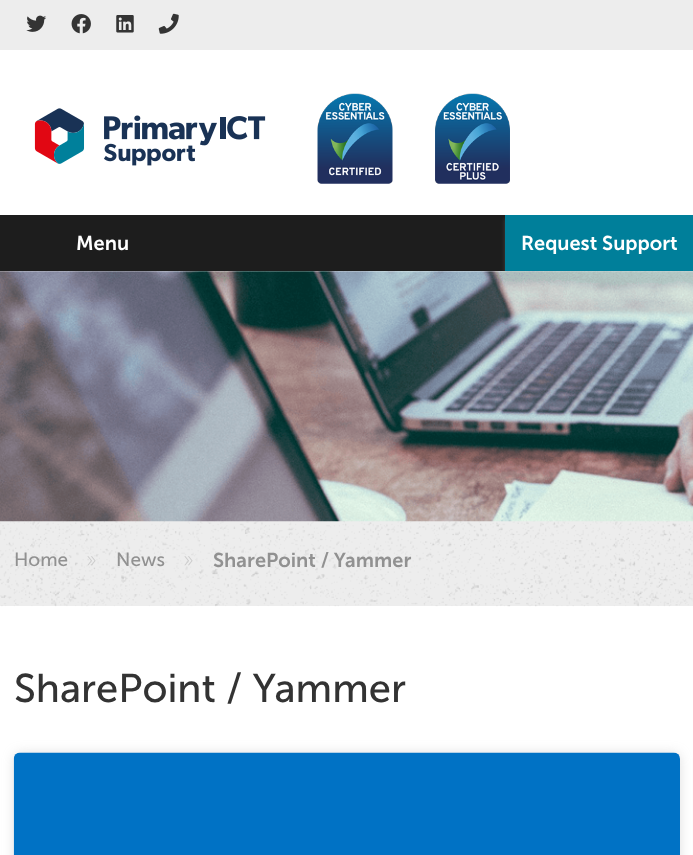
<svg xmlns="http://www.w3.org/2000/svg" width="693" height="855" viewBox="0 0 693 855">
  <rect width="100%" height="100%" fill="rgb(255,255,255)"/>
  <rect x="0" y="0" width="693" height="50" fill="rgb(237,237,237)"/>
  <image x="26" y="15" width="21" height="17" href="pic1.png"/>
  <image x="71" y="14" width="20" height="20" href="pic2.png"/>
  <image x="116" y="15" width="18" height="18" href="pic3.png"/>
  <image x="158" y="13" width="21" height="21" href="pic4.png"/>
  <image x="34" y="108" width="232" height="58" href="pic5.png"/>
  <image x="317" y="93" width="76" height="91" href="pic6.png"/>
  <image x="435" y="93" width="75" height="91" href="pic7.png"/>
  <rect x="0" y="215" width="505" height="56" fill="rgb(29,29,29)"/>
  <text x="76" y="250" font-family="'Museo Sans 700'" font-size="20" font-weight="600" fill="rgb(255,255,255)">Menu</text>
  <rect x="505" y="219" width="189" height="56" fill="rgba(153,153,153,0.3)" filter="blur(2px)"/>
  <rect x="505" y="215" width="188" height="56" fill="rgb(0,127,154)"/>
  <text x="521" y="250" font-family="'Museo Sans 700'" font-size="20" font-weight="600" fill="rgb(255,255,255)">Request Support</text>
  <rect x="0" y="521" width="693" height="85" fill="rgb(237,237,237)"/>
  <image x="0" y="521" width="693" height="86" href="pic9.png"/>
  <image x="0" y="271" width="693" height="251" href="pic8.png"/>
  <text x="14" y="566" font-family="'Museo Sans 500'" font-size="19" fill="rgb(145,145,145)">Home</text>
  <text x="86" y="567" font-family="'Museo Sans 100'" font-size="22" font-weight="300" fill="rgb(204,204,204)">»</text>
  <text x="116" y="566" font-family="'Museo Sans 500'" font-size="19" fill="rgb(145,145,145)">News</text>
  <text x="183" y="567" font-family="'Museo Sans 100'" font-size="22" font-weight="300" fill="rgb(204,204,204)">»</text>
  <text x="213" y="567" font-family="'Museo Sans 700'" font-size="20" font-weight="600" fill="rgb(145,145,145)">SharePoint / Yammer</text>
  <text x="14" y="702" font-family="'Museo Sans 500'" font-size="40" fill="rgb(51,51,51)">SharePoint / Yammer</text>
  <rect x="14" y="753" width="666" height="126" rx="6" fill="rgba(153,153,153,0.3)" filter="blur(6px)"/>
  <image x="13" y="752" width="667" height="103" href="pic10.png"/>
</svg>
